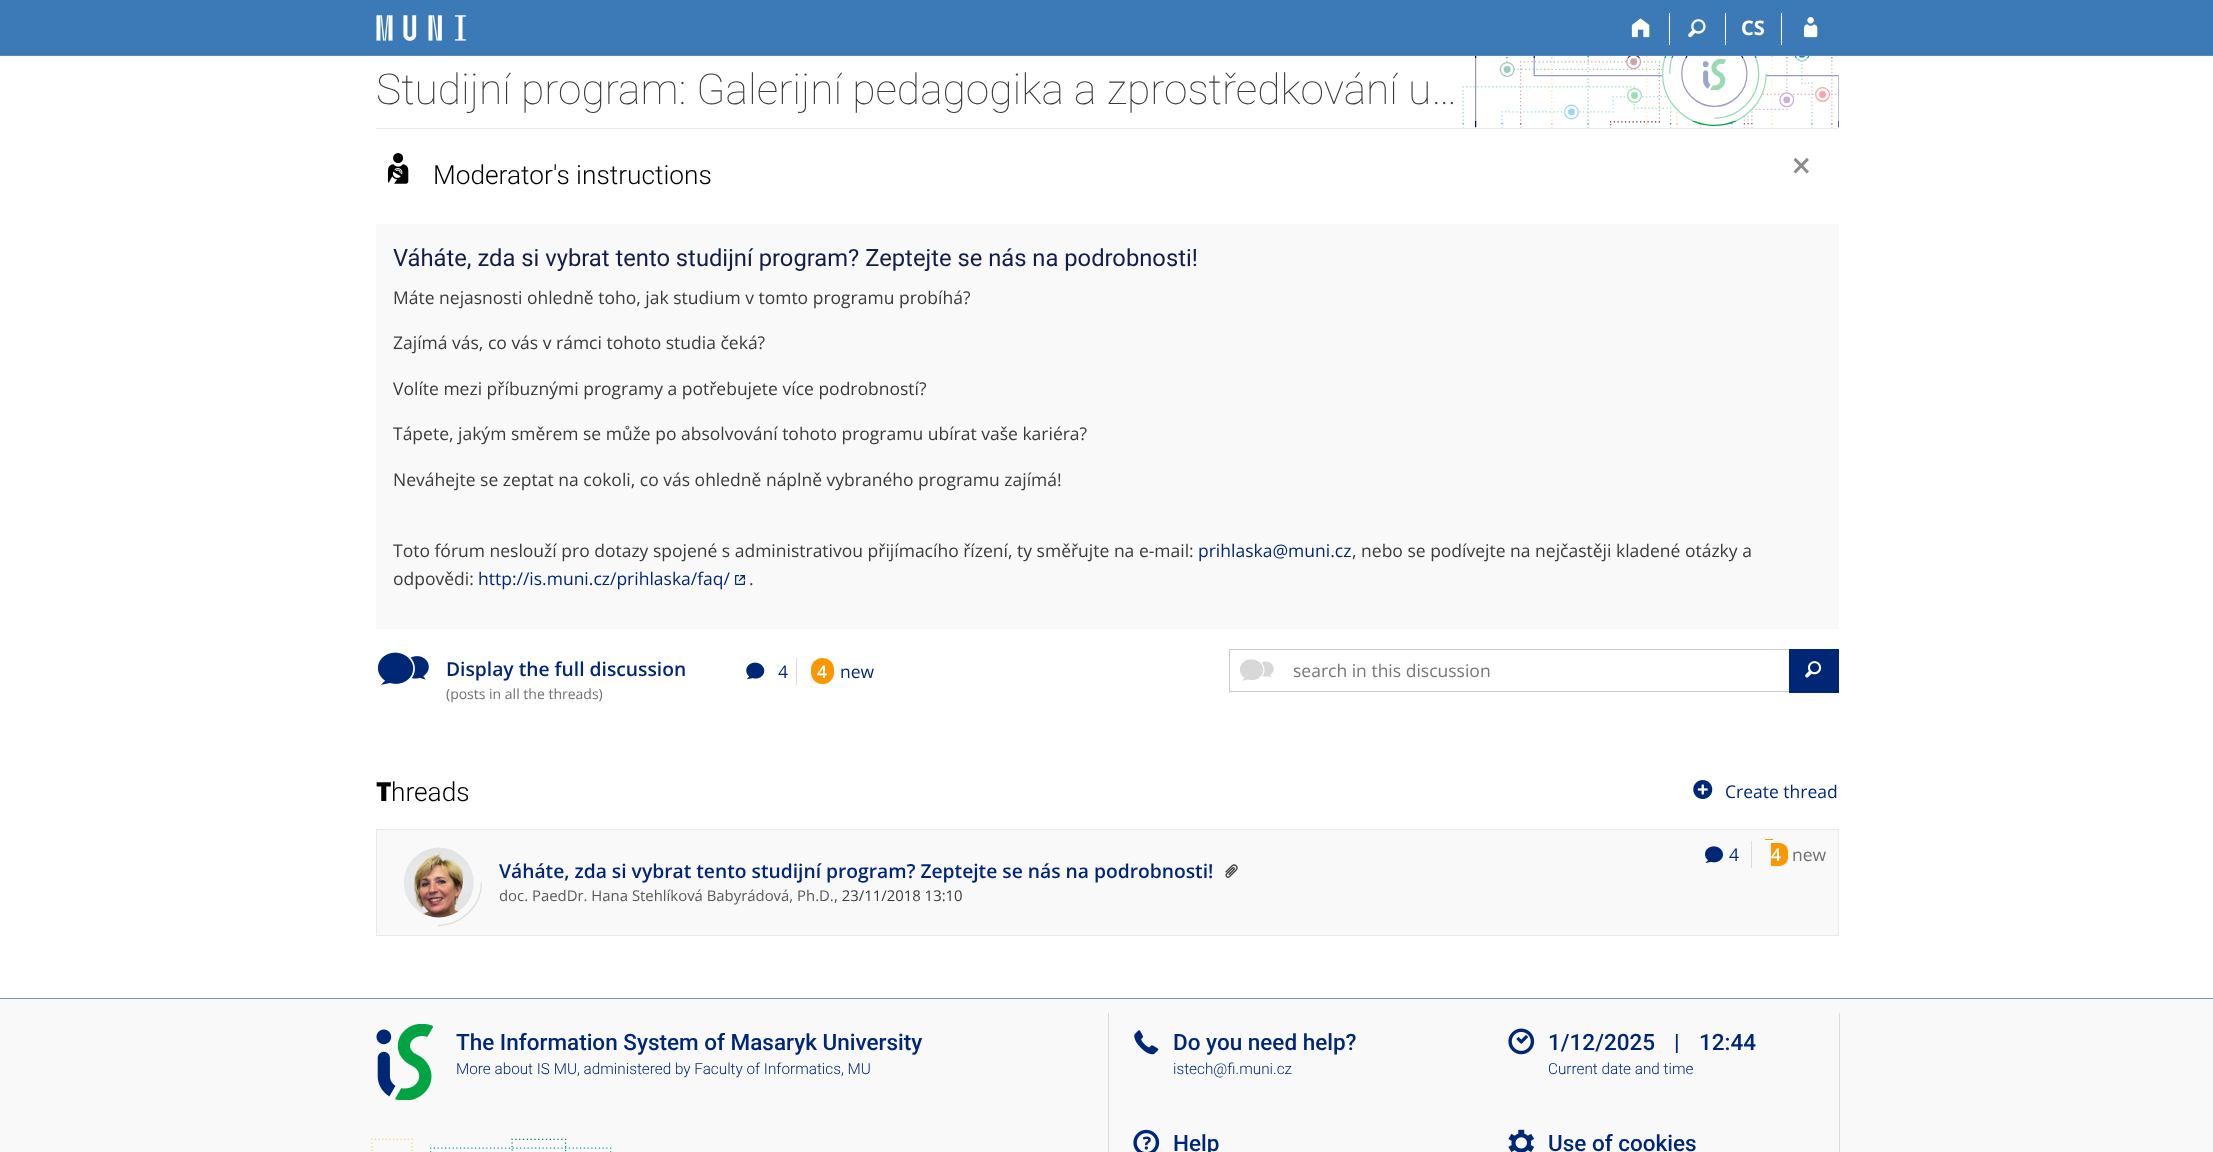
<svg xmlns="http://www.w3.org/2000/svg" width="2213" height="1152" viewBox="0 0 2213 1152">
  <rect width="100%" height="100%" fill="rgb(255,255,255)"/>
  <rect x="0" y="0" width="2213" height="55" fill="rgb(60,122,183)"/>
  <rect x="0" y="55" width="2213" height="1" fill="rgb(92,136,182)"/>
  <image x="376" y="15" width="90" height="26" href="pic1.png"/>
  <rect x="1669" y="13" width="1" height="32" fill="rgb(255,255,255)"/>
  <image x="1631" y="18" width="19" height="20" href="pic2.png"/>
  <rect x="1725" y="13" width="1" height="32" fill="rgb(255,255,255)"/>
  <image x="1688" y="19" width="18" height="19" href="pic3.png"/>
  <rect x="1781" y="13" width="1" height="32" fill="rgb(255,255,255)"/>
  <text x="1741" y="35" font-family="Open Sans" font-size="20" font-weight="bold" fill="rgb(255,255,255)">CS</text>
  <image x="1803" y="17" width="15" height="21" href="pic4.png"/>
  <image x="1462" y="56" width="377" height="72" href="pic5.png"/>
  <image x="1703" y="59" width="23" height="31" href="pic6.png"/>
  <rect x="1462" y="58" width="377" height="63" fill="rgba(255,255,255,0.6)"/>
  <text x="376" y="104" font-family="Roboto" font-size="42.5" font-weight="100" fill="rgb(58,58,58)">Studijní program: Galerijní pedagogika a zprostředkování u…</text>
  <rect x="376" y="128" width="1463" height="1" fill="rgb(234,234,234)"/>
  <image x="387" y="153" width="22" height="31" href="pic7.png"/>
  <text x="433" y="184" font-family="Roboto" font-size="26.25" font-weight="300" fill="rgb(0,0,0)">Moderator's instructions</text>
  <text x="1792" y="177" font-family="Roboto" font-size="35" fill="rgb(138,138,138)">×</text>
  <rect x="376" y="224" width="1463" height="405" fill="rgb(249,249,249)"/>
  <text x="393" y="266" font-family="Roboto" font-size="23.75" fill="rgb(20,28,74)">Váháte, zda si vybrat tento studijní program? Zeptejte se nás na podrobnosti!</text>
  <g font-family="Open Sans" font-size="17.5" fill="rgb(58,58,58)">
    <text x="393" y="304">Máte nejasnosti ohledně toho, jak studium v tomto programu probíhá?</text>
    <text x="393" y="349">Zajímá vás, co vás v rámci tohoto studia čeká?</text>
    <text x="393" y="395">Volíte mezi příbuznými programy a potřebujete více podrobností?</text>
    <text x="393" y="440">Tápete, jakým směrem se může po absolvování tohoto programu ubírat vaše kariéra?</text>
    <text x="393" y="486">Neváhejte se zeptat na cokoli, co vás ohledně náplně vybraného programu zajímá!</text>
    <text x="393" y="557">Toto fórum neslouží pro dotazy spojené s administrativou přijímacího řízení, ty směřujte na e-mail:</text>
  </g>
  <text x="1198" y="557" font-family="Open Sans" font-size="17.5" fill="rgb(0,39,118)">prihlaska@muni.cz</text>
  <g font-family="Open Sans" font-size="17.5" fill="rgb(58,58,58)">
    <text x="1352" y="557">, nebo se podívejte na nejčastěji kladené otázky a</text>
    <text x="393" y="585">odpovědi:</text>
  </g>
  <text x="478" y="585" font-family="Open Sans" font-size="17.5" fill="rgb(0,39,118)">http://is.muni.cz/prihlaska/faq/</text>
  <image x="735" y="575" width="10" height="10" href="pic8.png"/>
  <text x="749" y="585" font-family="Open Sans" font-size="17.5" fill="rgb(58,58,58)">.</text>
  <image x="377" y="652" width="52" height="33" href="pic9.png"/>
  <text x="446" y="676" font-family="Open Sans" font-size="19.25" font-weight="600" fill="rgb(0,39,118)">Display the full discussion</text>
  <text x="446" y="699" font-family="Open Sans" font-size="14" fill="rgb(112,112,116)">(posts in all the threads)</text>
  <image x="746" y="662" width="19" height="18" href="pic10.png"/>
  <text x="778" y="678" font-family="Open Sans" font-size="17.5" fill="rgb(0,39,118)">4</text>
  <rect x="796" y="658" width="1" height="27" fill="rgb(221,221,221)"/>
  <rect x="811" y="658" width="23" height="26" rx="11.5" fill="rgb(252,150,3)"/>
  <text x="817" y="678" font-family="Open Sans" font-size="17.5" font-weight="600" fill="rgb(255,255,255)">4</text>
  <text x="840" y="678" font-family="Open Sans" font-size="17.5" fill="rgb(0,39,118)">new</text>
  <rect x="1229" y="649" width="560" height="1" fill="rgb(202,202,202)"/>
  <rect x="1229" y="691" width="560" height="1" fill="rgb(202,202,202)"/>
  <rect x="1229" y="649" width="1" height="44" fill="rgb(202,202,202)"/>
  <image x="1239" y="659" width="35" height="22" href="pic11.png"/>
  <rect x="1789" y="649" width="50" height="44" fill="rgb(0,39,118)"/>
  <image x="1805" y="661" width="17" height="17" href="pic12.png"/>
  <text x="1293" y="677" font-family="Open Sans" font-size="17.5" fill="rgb(119,119,119)">search in this discussion</text>
  <text x="376" y="801" font-family="Noto Sans" font-size="26.25" font-weight="900" fill="rgb(0,0,0)">T</text>
  <text x="391" y="801" font-family="Roboto" font-size="26.25" font-weight="300" fill="rgb(0,0,0)">hreads</text>
  <image x="1693" y="780" width="20" height="19" href="pic13.png"/>
  <text x="1725" y="798" font-family="Open Sans" font-size="17.5" fill="rgb(0,39,118)">Create thread</text>
  <rect x="376.5" y="829.5" width="1462" height="106" fill="rgb(249,249,249)" stroke="rgb(234,234,234)"/>
  <path d="M481.5 882.5C481.5 906 461.5 925.5 438 925.5" fill="none" stroke="rgb(221,221,221)" stroke-width="1.3"/>
  <image x="403" y="847" width="71" height="71" href="pic14.png"/>
  <image x="1705" y="846" width="18" height="17" href="pic15.png"/>
  <text x="1729" y="861" font-family="Open Sans" font-size="17.5" fill="rgb(0,39,118)">4</text>
  <rect x="1751" y="841" width="1" height="27" fill="rgb(221,221,221)"/>
  <path d="M1771 843H1779.5C1784 843 1788 847 1788 851.5V857.5C1788 862 1784 866 1779.5 866H1771Z" fill="rgb(252,150,3)"/>
  <text x="1771" y="861" font-family="Open Sans" font-size="17.5" font-weight="600" fill="rgb(255,255,255)">4</text>
  <path d="M1765.5 839H1773V840H1765.5C1765 840 1765 840 1765 839.5C1765 839 1765 839 1765.5 839Z" fill="rgb(252,150,3)"/>
  <text x="1792" y="861" font-family="Open Sans" font-size="17.5" fill="rgb(112,112,116)">new</text>
  <text x="499" y="878" font-family="Open Sans" font-size="19.25" font-weight="600" fill="rgb(0,39,118)">Váháte, zda si vybrat tento studijní program? Zeptejte se nás na podrobnosti!</text>
  <image x="1225" y="864" width="13" height="14" href="pic16.png"/>
  <text x="499" y="901" font-family="Open Sans" font-size="14.9" fill="rgb(90,90,90)">doc. PaedDr. Hana Stehlíková Babyrádová, Ph.D.</text>
  <text x="834" y="901" font-family="Open Sans" font-size="14.9" fill="rgb(58,58,58)">, 23/11/2018 13:10</text>
  <rect x="0" y="999" width="2213" height="153" fill="rgb(249,249,249)"/>
  <rect x="0" y="998" width="2213" height="1" fill="rgb(125,144,184)"/>
  <image x="371" y="1138" width="241" height="14" href="pic17.png"/>
  <image x="376" y="1024" width="57" height="76" href="pic18.png"/>
  <text x="456" y="1050" font-family="Roboto" font-size="22.5" font-weight="500" fill="rgb(0,39,118)">The Information System of Masaryk University</text>
  <text x="456" y="1074" font-family="Roboto" font-size="15.3" font-weight="300" fill="rgb(0,39,118)">More about IS MU, administered by Faculty of Informatics, MU</text>
  <rect x="1108" y="1013" width="1" height="139" fill="rgb(221,221,221)"/>
  <image x="1134" y="1030" width="25" height="25" href="pic19.png"/>
  <text x="1173" y="1050" font-family="Roboto" font-size="22.5" font-weight="500" fill="rgb(0,39,118)">Do you need help?</text>
  <text x="1173" y="1074" font-family="Roboto" font-size="15.3" font-weight="300" fill="rgb(0,39,118)">istech@fi.muni.cz</text>
  <image x="1133" y="1129" width="27" height="23" href="pic20.png"/>
  <text x="1173" y="1151" font-family="Roboto" font-size="22.5" font-weight="500" fill="rgb(0,39,118)">Help</text>
  <image x="1508" y="1028" width="27" height="27" href="pic21.png"/>
  <g font-family="Roboto" font-size="22.5" font-weight="500" fill="rgb(0,39,118)">
    <text x="1548" y="1050">1/12/2025</text>
    <text x="1674" y="1050">|</text>
    <text x="1699" y="1050">12:44</text>
  </g>
  <text x="1548" y="1074" font-family="Roboto" font-size="15.3" font-weight="300" fill="rgb(0,39,118)">Current date and time</text>
  <image x="1508" y="1129" width="27" height="23" href="pic22.png"/>
  <text x="1548" y="1151" font-family="Roboto" font-size="22.5" font-weight="500" fill="rgb(0,39,118)">Use of cookies</text>
  <rect x="1839" y="1013" width="1" height="139" fill="rgb(221,221,221)"/>
</svg>
